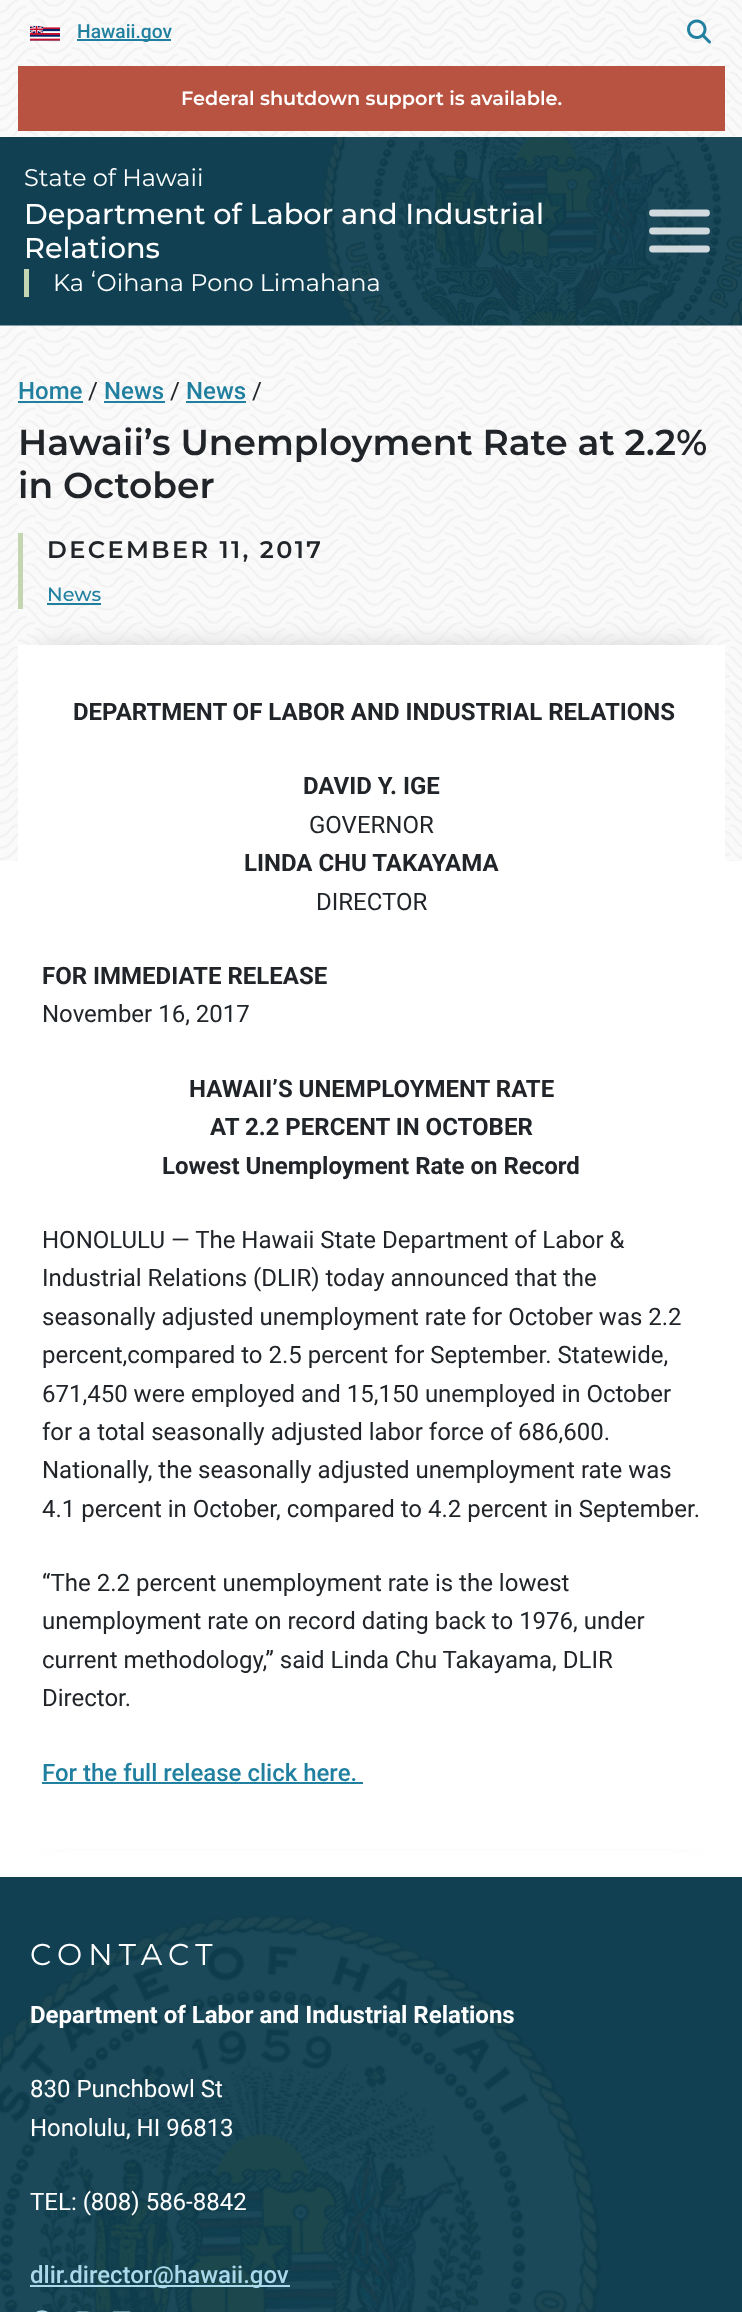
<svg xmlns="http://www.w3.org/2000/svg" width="742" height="2312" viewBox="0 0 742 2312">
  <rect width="100%" height="100%" fill="rgb(255,255,255)"/>
  <image x="0" y="0" width="742" height="137" href="pic1.png"/>
  <image x="30" y="26" width="30" height="15" href="pic2.png"/>
  <rect x="77" y="39" width="94" height="2" fill="rgb(33,128,160)"/>
  <text x="77" y="38" font-family="Roboto" font-size="19.25" font-weight="500" fill="rgb(33,128,160)">Hawaii.gov</text>
  <image x="687" y="19" width="24" height="25" href="pic3.png"/>
  <rect x="18" y="66" width="707" height="65" fill="rgb(183,83,64)"/>
  <text x="181" y="105" font-family="Montserrat" font-size="19.25" font-weight="600" fill="rgb(255,255,255)">Federal shutdown support is available.</text>
  <rect x="0" y="137" width="742" height="189" fill="rgb(16,64,81)"/>
  <image x="323" y="136" width="419" height="190" href="pic4.png"/>
  <text x="24" y="186" font-family="Montserrat" font-size="24" fill="rgb(255,255,255)">State of Hawaii</text>
  <g font-family="Montserrat" font-size="28.75" font-weight="500" fill="rgb(255,255,255)">
    <text>
      <tspan x="24" y="224">Department of Labor and Industrial</tspan>
      <tspan x="24" y="258">Relations</tspan>
    </text>
  </g>
  <text x="53" y="291" font-family="Montserrat" font-size="24" fill="rgb(255,255,255)">Ka ʻOihana Pono Limahana</text>
  <rect x="24" y="269" width="5" height="28" fill="rgb(195,214,177)"/>
  <path d="M652.5 213H706.5M652.5 231H706.5M652.5 249H706.5" fill="none" stroke="rgba(255,255,255,0.8)" stroke-width="6.8" stroke-linecap="round"/>
  <image x="0" y="325" width="742" height="536" href="pic5.png"/>
  <text x="18" y="399" font-family="Roboto" font-size="24" font-weight="500" fill="rgb(33,128,160)">Home</text>
  <rect x="18" y="401" width="65" height="2" fill="rgb(33,128,160)"/>
  <text x="88" y="399" font-family="Roboto" font-size="24" fill="rgb(33,37,41)">/</text>
  <text x="104" y="399" font-family="Roboto" font-size="24" font-weight="500" fill="rgb(33,128,160)">News</text>
  <rect x="104" y="401" width="61" height="2" fill="rgb(33,128,160)"/>
  <text x="170" y="399" font-family="Roboto" font-size="24" fill="rgb(33,37,41)">/</text>
  <text x="186" y="399" font-family="Roboto" font-size="24" font-weight="500" fill="rgb(33,128,160)">News</text>
  <rect x="186" y="401" width="60" height="2" fill="rgb(33,128,160)"/>
  <text x="252" y="399" font-family="Roboto" font-size="24" fill="rgb(33,37,41)">/</text>
  <g font-family="Montserrat" font-size="36" font-weight="600" fill="rgb(33,37,41)">
    <text>
      <tspan x="18" y="455">Hawaii’s Unemployment Rate at 2.2%</tspan>
      <tspan x="18" y="498">in October</tspan>
    </text>
  </g>
  <rect x="18" y="533" width="5" height="76" fill="rgb(195,214,177)"/>
  <text x="47" y="558" font-family="Montserrat" font-size="24" font-weight="600" letter-spacing="2.4" fill="rgb(33,37,41)">DECEMBER 11, 2017</text>
  <text x="47" y="601" font-family="Montserrat" font-size="19.25" font-weight="500" fill="rgb(33,128,160)">News</text>
  <rect x="47" y="603" width="54" height="2" fill="rgb(33,128,160)"/>
  <rect x="41" y="645" width="661" height="1187" fill="rgb(213,213,213)" filter="blur(11px)"/>
  <rect x="18" y="645" width="707" height="1204" fill="rgb(255,255,255)"/>
  <g font-family="Roboto" font-size="24" font-weight="bold" fill="rgb(33,37,41)">
    <text x="73" y="720">DEPARTMENT OF LABOR AND INDUSTRIAL RELATIONS</text>
    <text x="303" y="794">DAVID Y. IGE</text>
  </g>
  <text x="309" y="833" font-family="Roboto" font-size="24" fill="rgb(33,37,41)">GOVERNOR</text>
  <text x="244" y="871" font-family="Roboto" font-size="24" font-weight="bold" fill="rgb(33,37,41)">LINDA CHU TAKAYAMA</text>
  <text x="316" y="910" font-family="Roboto" font-size="24" fill="rgb(33,37,41)">DIRECTOR</text>
  <text x="42" y="984" font-family="Roboto" font-size="24" font-weight="bold" fill="rgb(33,37,41)">FOR IMMEDIATE RELEASE</text>
  <text x="42" y="1022" font-family="Roboto" font-size="24" fill="rgb(33,37,41)">November 16, 2017</text>
  <g font-family="Roboto" font-size="24" font-weight="bold" fill="rgb(33,37,41)">
    <text x="189" y="1097">HAWAII’S UNEMPLOYMENT RATE</text>
    <text x="210" y="1135">AT 2.2 PERCENT IN OCTOBER</text>
    <text x="162" y="1174">Lowest Unemployment Rate on Record</text>
  </g>
  <g font-family="Roboto" font-size="24" fill="rgb(33,37,41)">
    <text>
      <tspan x="42" y="1248">HONOLULU — The Hawaii State Department of Labor &amp;</tspan>
      <tspan x="42" y="1286">Industrial Relations (DLIR) today announced that the</tspan>
      <tspan x="42" y="1325">seasonally adjusted unemployment rate for October was 2.2</tspan>
      <tspan x="42" y="1363">percent,compared to 2.5 percent for September. Statewide,</tspan>
      <tspan x="42" y="1402">671,450 were employed and 15,150 unemployed in October</tspan>
      <tspan x="42" y="1440">for a total seasonally adjusted labor force of 686,600.</tspan>
      <tspan x="42" y="1478">Nationally, the seasonally adjusted unemployment rate was</tspan>
      <tspan x="42" y="1517">4.1 percent in October, compared to 4.2 percent in September.</tspan>
    </text>
    <text>
      <tspan x="42" y="1591">“The 2.2 percent unemployment rate is the lowest</tspan>
      <tspan x="42" y="1629">unemployment rate on record dating back to 1976, under</tspan>
      <tspan x="42" y="1668">current methodology,” said Linda Chu Takayama, DLIR</tspan>
      <tspan x="42" y="1706">Director.</tspan>
    </text>
  </g>
  <text x="42" y="1781" font-family="Roboto" font-size="24" font-weight="500" fill="rgb(33,128,160)">For the full release click here.</text>
  <rect x="42" y="1782" width="321" height="2" fill="rgb(33,128,160)"/>
  <rect x="0" y="1877" width="742" height="435" fill="rgb(16,64,81)"/>
  <image x="0" y="1916" width="601" height="396" href="pic6.png"/>
  <text x="30" y="1965" font-family="Montserrat" font-size="30" letter-spacing="6" fill="rgb(255,255,255)">CONTACT</text>
  <text x="30" y="2023" font-family="Roboto" font-size="24" font-weight="bold" fill="rgb(255,255,255)">Department of Labor and Industrial Relations</text>
  <g font-family="Roboto" font-size="24" fill="rgb(255,255,255)">
    <text>
      <tspan x="30" y="2097">830 Punchbowl St</tspan>
      <tspan x="30" y="2136">Honolulu, HI 96813</tspan>
    </text>
    <text x="30" y="2210">TEL: (808) 586-8842</text>
  </g>
  <rect x="30" y="2285" width="260" height="2" fill="rgb(169,217,234)"/>
  <text x="30" y="2283" font-family="Roboto" font-size="24" font-weight="500" fill="rgb(169,217,234)">dlir.director@hawaii.gov</text>
  <image x="36" y="2310" width="12" height="2" href="pic7.png"/>
  <image x="76" y="2311" width="13" height="1" href="pic8.png"/>
  <image x="112" y="2311" width="19" height="1" href="pic9.png"/>
</svg>
